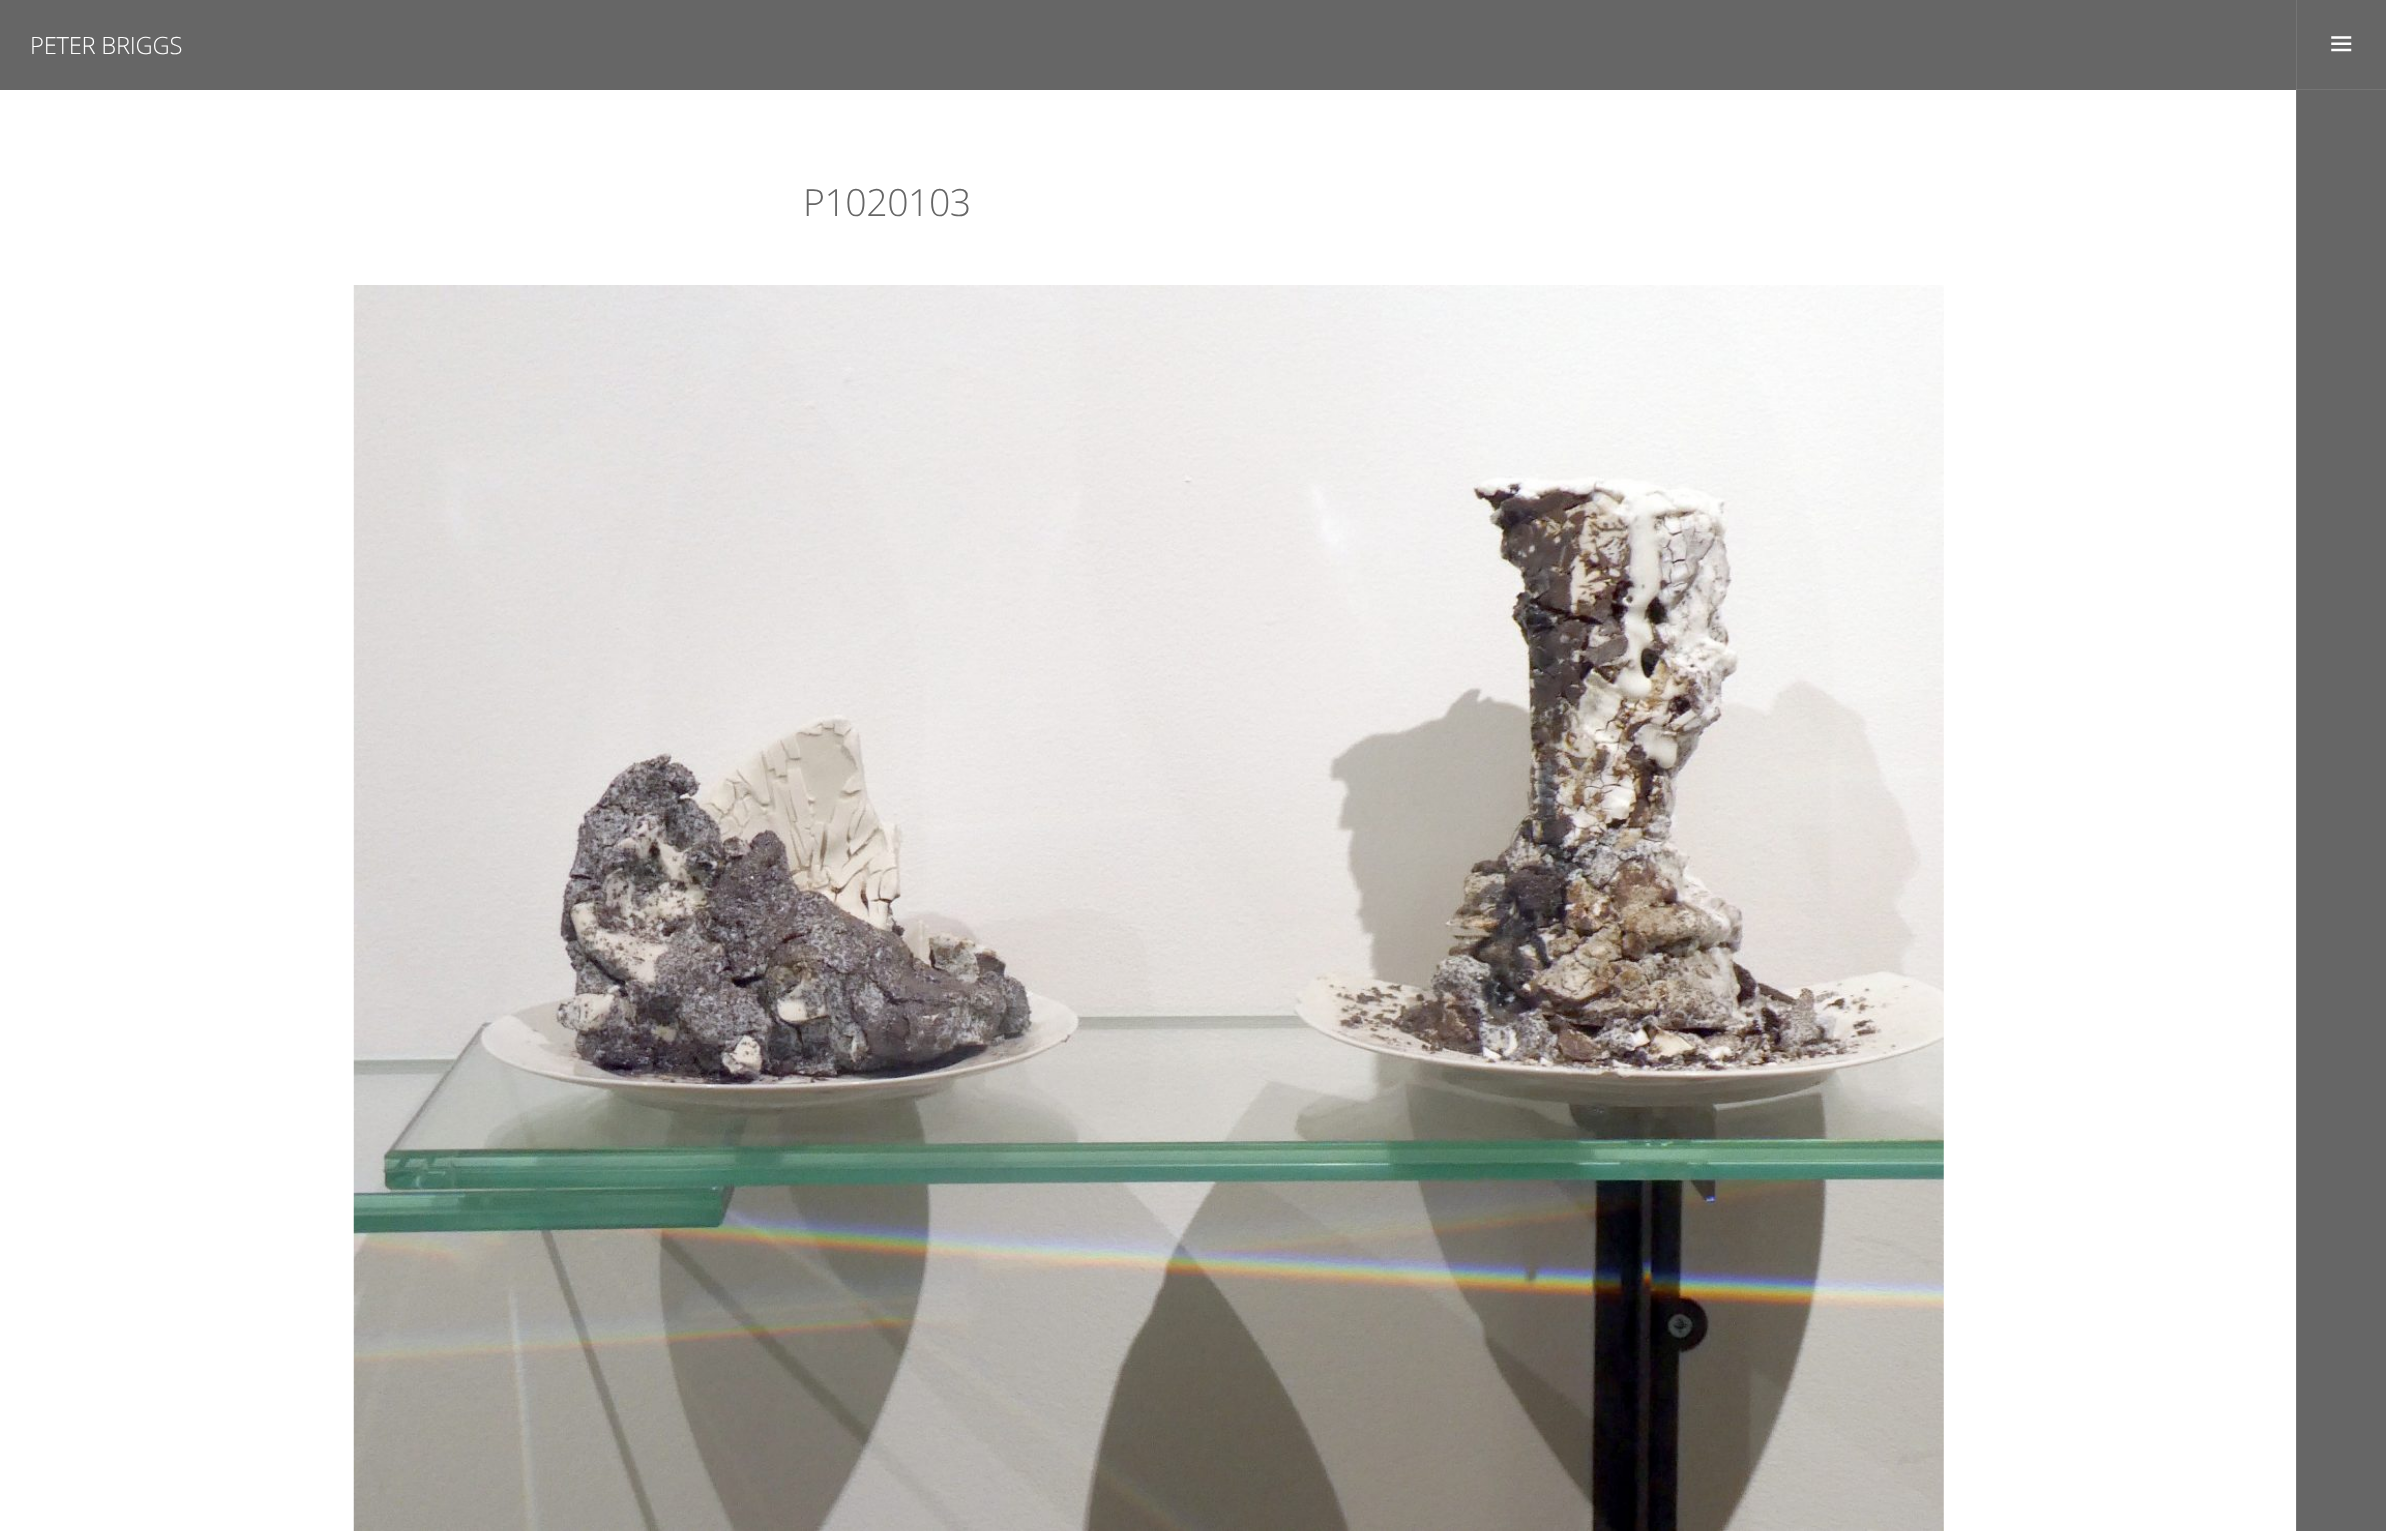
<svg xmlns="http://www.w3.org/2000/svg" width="2386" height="1531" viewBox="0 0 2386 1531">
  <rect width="100%" height="100%" fill="rgb(255,255,255)"/>
  <rect x="0" y="0" width="2296" height="90" fill="rgb(102,102,102)"/>
  <text x="30" y="54" font-family="Open Sans" font-size="23.75" font-weight="300" letter-spacing="-0.25" fill="rgb(255,255,255)">PETER BRIGGS</text>
  <rect x="2297" y="0" width="89" height="1531" fill="rgb(102,102,102)"/>
  <image x="2331" y="36" width="21" height="16" href="pic1.png"/>
  <text x="803" y="216" font-family="Open Sans" font-size="37.5" font-weight="300" letter-spacing="-0.5" fill="rgb(102,102,102)">P1020103</text>
  <image x="353" y="285" width="1591" height="1246" href="pic2.png"/>
  <rect x="2296" y="89" width="90" height="1" fill="rgb(117,117,117)"/>
  <rect x="2296" y="0" width="1" height="1531" fill="rgb(117,117,117)"/>
  <rect x="2296" y="89" width="1" height="1" fill="rgb(131,131,131)"/>
</svg>
